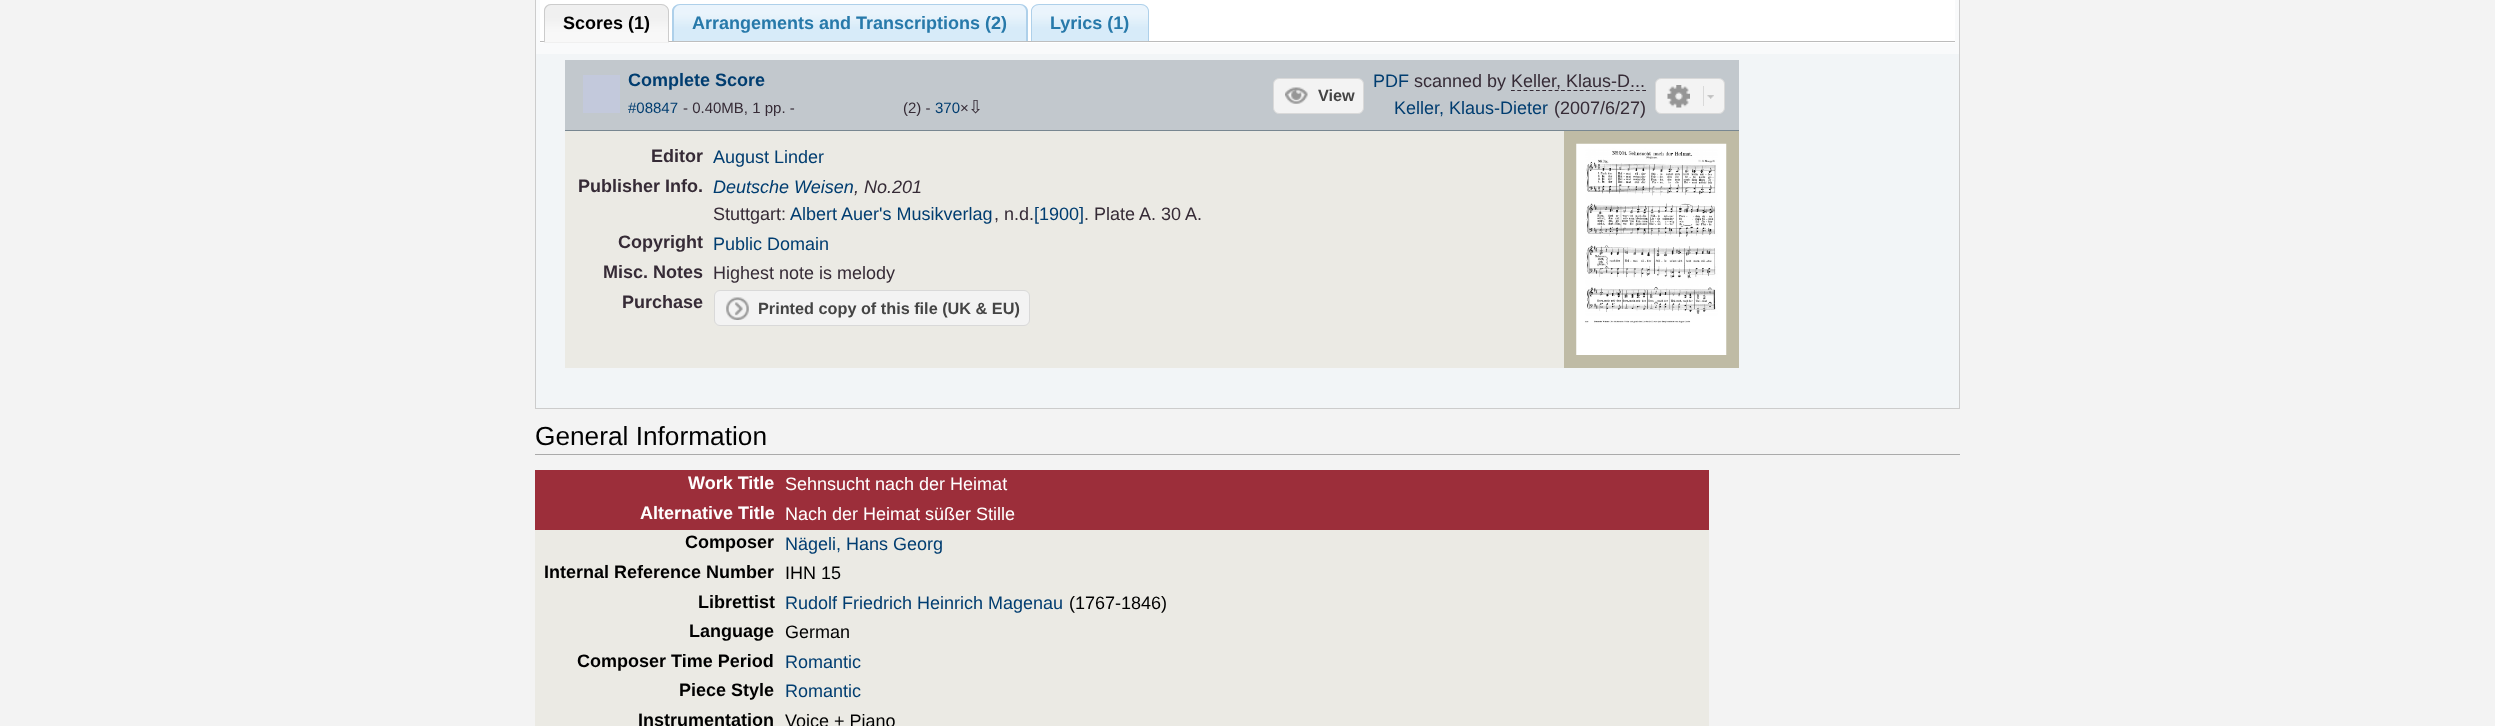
<svg xmlns="http://www.w3.org/2000/svg" width="2495" height="726" viewBox="0 0 2495 726">
  <rect width="100%" height="100%" fill="rgb(243,243,243)"/>
  <rect x="536" y="54" width="1423" height="354" fill="rgb(242,245,247)"/>
  <rect x="536" y="0" width="1423" height="54" fill="rgb(249,250,251)"/>
  <rect x="535.5" y="-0.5" width="1424" height="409" fill="none" stroke="rgb(204,204,204)"/>
  <rect x="540" y="0" width="1415" height="43" fill="rgb(255,255,255)"/>
  <rect x="540" y="41" width="1415" height="1" fill="rgb(187,187,187)"/>
  <path d="M552 4H661C665.5 4 669 7.5 669 12V43H544V12C544 7.5 547.5 4 552 4Z" fill="rgb(240,240,240)"/>
  <image x="543" y="4" width="126" height="38" href="pic1.png"/>
  <path d="M551 4H661C665 4 669 7 669 11V42H544V11C544 7 547 4 551 4ZM551 5H661C665 5 668 8 668 11V42H545V11C545 8 548 5 551 5Z" fill="rgb(204,204,204)" fill-rule="evenodd"/>
  <text x="563" y="29" font-family="Liberation Sans" font-size="18" font-weight="bold" fill="rgb(0,0,0)">Scores (1)</text>
  <image x="672" y="4" width="356" height="38" href="pic2.png"/>
  <path d="M680 4H1020C1024 4 1028 7 1028 11V41H672V11C672 7 676 4 680 4ZM680 5H1020C1023 5 1026 8 1026 11V41H674V11C674 8 677 5 680 5Z" fill="rgb(174,208,234)" fill-rule="evenodd"/>
  <text x="692" y="29" font-family="Liberation Sans" font-size="18" font-weight="bold" fill="rgb(39,121,170)">Arrangements and Transcriptions (2)</text>
  <image x="1031" y="4" width="118" height="38" href="pic3.png"/>
  <path d="M1039 4H1141C1145 4 1149 7 1149 11V41H1031V11C1031 7 1035 4 1039 4ZM1039 5H1141C1145 5 1148 8 1148 11V41H1032V11C1032 8 1035 5 1039 5Z" fill="rgb(174,208,234)" fill-rule="evenodd"/>
  <text x="1050" y="29" font-family="Liberation Sans" font-size="18" font-weight="bold" fill="rgb(39,121,170)">Lyrics (1)</text>
  <rect x="565" y="60" width="1174" height="70" fill="rgb(194,200,205)"/>
  <rect x="565" y="130" width="1174" height="1" fill="rgb(120,135,145)"/>
  <rect x="583" y="75" width="37" height="38" fill="rgb(195,201,220)"/>
  <text x="628" y="86" font-family="Liberation Sans" font-size="18" font-weight="bold" fill="rgb(0,61,112)">Complete Score</text>
  <text x="628" y="113" font-family="Liberation Sans" font-size="15" fill="rgb(0,61,112)">#08847</text>
  <g font-family="Liberation Sans" font-size="15" fill="rgb(54,43,54)">
    <text x="683" y="113">- 0.40MB, 1 pp. -</text>
    <text x="903" y="113">(2) -</text>
  </g>
  <text x="935" y="113" font-family="Liberation Sans" font-size="15" fill="rgb(0,61,112)">370</text>
  <text x="960" y="113" font-family="Liberation Sans" font-size="15" fill="rgb(54,43,54)">×</text>
  <text x="968" y="113" font-family="DejaVu Sans" font-size="18" fill="rgb(54,43,54)">⇩</text>
  <rect x="1273.5" y="78.5" width="90" height="35" rx="5.5" fill="rgb(243,243,243)" stroke="rgb(217,217,217)"/>
  <image x="1285" y="87" width="23" height="17" href="pic4.png"/>
  <text x="1318" y="101" font-family="Liberation Sans" font-size="16.25" font-weight="bold" fill="rgb(68,68,68)">View</text>
  <text x="1373" y="87" font-family="Liberation Sans" font-size="18" fill="rgb(0,61,112)">PDF</text>
  <text x="1414" y="87" font-family="Liberation Sans" font-size="18" fill="rgb(54,43,54)">scanned by</text>
  <path d="M1511 90.5H1646" fill="none" stroke="rgb(54,43,54)" stroke-width="1.2" stroke-dasharray="3.75 2.5"/>
  <text x="1511" y="87" font-family="Liberation Sans" font-size="18" fill="rgb(54,43,54)">Keller, Klaus-D...</text>
  <text x="1394" y="114" font-family="Liberation Sans" font-size="18" fill="rgb(0,61,112)">Keller, Klaus-Dieter</text>
  <text x="1554" y="114" font-family="Liberation Sans" font-size="18" fill="rgb(54,43,54)">(2007/6/27)</text>
  <rect x="1655.5" y="78.5" width="69" height="35" rx="5.5" fill="rgb(243,243,243)" stroke="rgb(217,217,217)"/>
  <image x="1667" y="85" width="23" height="23" href="pic5.png"/>
  <image x="1707" y="95" width="7" height="4" href="pic6.png"/>
  <rect x="1703" y="86" width="1" height="20" fill="rgb(217,217,217)"/>
  <rect x="1564" y="131" width="175" height="237" fill="rgb(191,187,165)"/>
  <rect x="565" y="131" width="999" height="237" fill="rgb(235,234,228)"/>
  <text x="651" y="162" font-family="Liberation Sans" font-size="18" font-weight="bold" fill="rgb(54,43,54)">Editor</text>
  <text x="713" y="163" font-family="Liberation Sans" font-size="18" fill="rgb(0,61,112)">August Linder</text>
  <text x="578" y="192" font-family="Liberation Sans" font-size="18" font-weight="bold" fill="rgb(54,43,54)">Publisher Info.</text>
  <text x="713" y="193" font-family="Liberation Sans" font-size="18" font-style="italic" fill="rgb(0,61,112)">Deutsche Weisen</text>
  <text x="854" y="193" font-family="Liberation Sans" font-size="18" font-style="italic" fill="rgb(54,43,54)">, No.201</text>
  <text x="713" y="220" font-family="Liberation Sans" font-size="18" fill="rgb(54,43,54)">Stuttgart:</text>
  <text x="790" y="220" font-family="Liberation Sans" font-size="18" fill="rgb(0,61,112)">Albert Auer's Musikverlag</text>
  <text x="994" y="220" font-family="Liberation Sans" font-size="18" fill="rgb(54,43,54)">, n.d.</text>
  <text x="1034" y="220" font-family="Liberation Sans" font-size="18" fill="rgb(0,61,112)">[1900]</text>
  <text x="1084" y="220" font-family="Liberation Sans" font-size="18" fill="rgb(54,43,54)">. Plate A. 30 A.</text>
  <text x="618" y="248" font-family="Liberation Sans" font-size="18" font-weight="bold" fill="rgb(54,43,54)">Copyright</text>
  <text x="713" y="250" font-family="Liberation Sans" font-size="18" fill="rgb(0,61,112)">Public Domain</text>
  <text x="603" y="278" font-family="Liberation Sans" font-size="18" font-weight="bold" fill="rgb(54,43,54)">Misc. Notes</text>
  <text x="713" y="279" font-family="Liberation Sans" font-size="18" fill="rgb(54,43,54)">Highest note is melody</text>
  <text x="622" y="308" font-family="Liberation Sans" font-size="18" font-weight="bold" fill="rgb(54,43,54)">Purchase</text>
  <rect x="714.5" y="290.5" width="315" height="35" rx="5.5" fill="rgb(243,243,243)" stroke="rgb(217,217,217)"/>
  <image x="726" y="297" width="23" height="23" href="pic7.png"/>
  <text x="758" y="314" font-family="Liberation Sans" font-size="16.25" font-weight="bold" fill="rgb(68,68,68)">Printed copy of this file (UK &amp; EU)</text>
  <image x="1576" y="143" width="151" height="212" href="pic8.png"/>
  <rect x="535" y="454" width="1425" height="1" fill="rgb(170,170,170)"/>
  <text x="535" y="445" font-family="Liberation Sans" font-size="26.25" fill="rgb(0,0,0)">General Information</text>
  <rect x="535" y="530" width="1174" height="196" fill="rgb(235,234,228)"/>
  <rect x="535" y="470" width="1174" height="30" fill="rgb(156,46,58)"/>
  <text x="688" y="489" font-family="Liberation Sans" font-size="18" font-weight="bold" fill="rgb(255,255,255)">Work Title</text>
  <text x="785" y="490" font-family="Liberation Sans" font-size="18" fill="rgb(255,255,255)">Sehnsucht nach der Heimat</text>
  <rect x="535" y="500" width="1174" height="30" fill="rgb(156,46,58)"/>
  <text x="640" y="519" font-family="Liberation Sans" font-size="18" font-weight="bold" fill="rgb(255,255,255)">Alternative Title</text>
  <text x="785" y="520" font-family="Liberation Sans" font-size="18" fill="rgb(255,255,255)">Nach der Heimat süßer Stille</text>
  <text x="685" y="548" font-family="Liberation Sans" font-size="18" font-weight="bold" fill="rgb(0,0,0)">Composer</text>
  <text x="785" y="550" font-family="Liberation Sans" font-size="18" fill="rgb(0,61,112)">Nägeli, Hans Georg</text>
  <text x="544" y="578" font-family="Liberation Sans" font-size="18" font-weight="bold" fill="rgb(0,0,0)">Internal Reference Number</text>
  <text x="785" y="579" font-family="Liberation Sans" font-size="18" fill="rgb(0,0,0)">IHN 15</text>
  <text x="698" y="608" font-family="Liberation Sans" font-size="18" font-weight="bold" fill="rgb(0,0,0)">Librettist</text>
  <text x="785" y="609" font-family="Liberation Sans" font-size="18" fill="rgb(0,61,112)">Rudolf Friedrich Heinrich Magenau</text>
  <text x="1069" y="609" font-family="Liberation Sans" font-size="18" fill="rgb(0,0,0)">(1767-1846)</text>
  <text x="689" y="637" font-family="Liberation Sans" font-size="18" font-weight="bold" fill="rgb(0,0,0)">Language</text>
  <text x="785" y="638" font-family="Liberation Sans" font-size="18" fill="rgb(0,0,0)">German</text>
  <text x="577" y="667" font-family="Liberation Sans" font-size="18" font-weight="bold" fill="rgb(0,0,0)">Composer Time Period</text>
  <text x="785" y="668" font-family="Liberation Sans" font-size="18" fill="rgb(0,61,112)">Romantic</text>
  <text x="679" y="696" font-family="Liberation Sans" font-size="18" font-weight="bold" fill="rgb(0,0,0)">Piece Style</text>
  <text x="785" y="697" font-family="Liberation Sans" font-size="18" fill="rgb(0,61,112)">Romantic</text>
  <text x="638" y="726" font-family="Liberation Sans" font-size="18" font-weight="bold" fill="rgb(0,0,0)">Instrumentation</text>
  <text x="785" y="727" font-family="Liberation Sans" font-size="18" fill="rgb(0,0,0)">Voice + Piano</text>
</svg>
